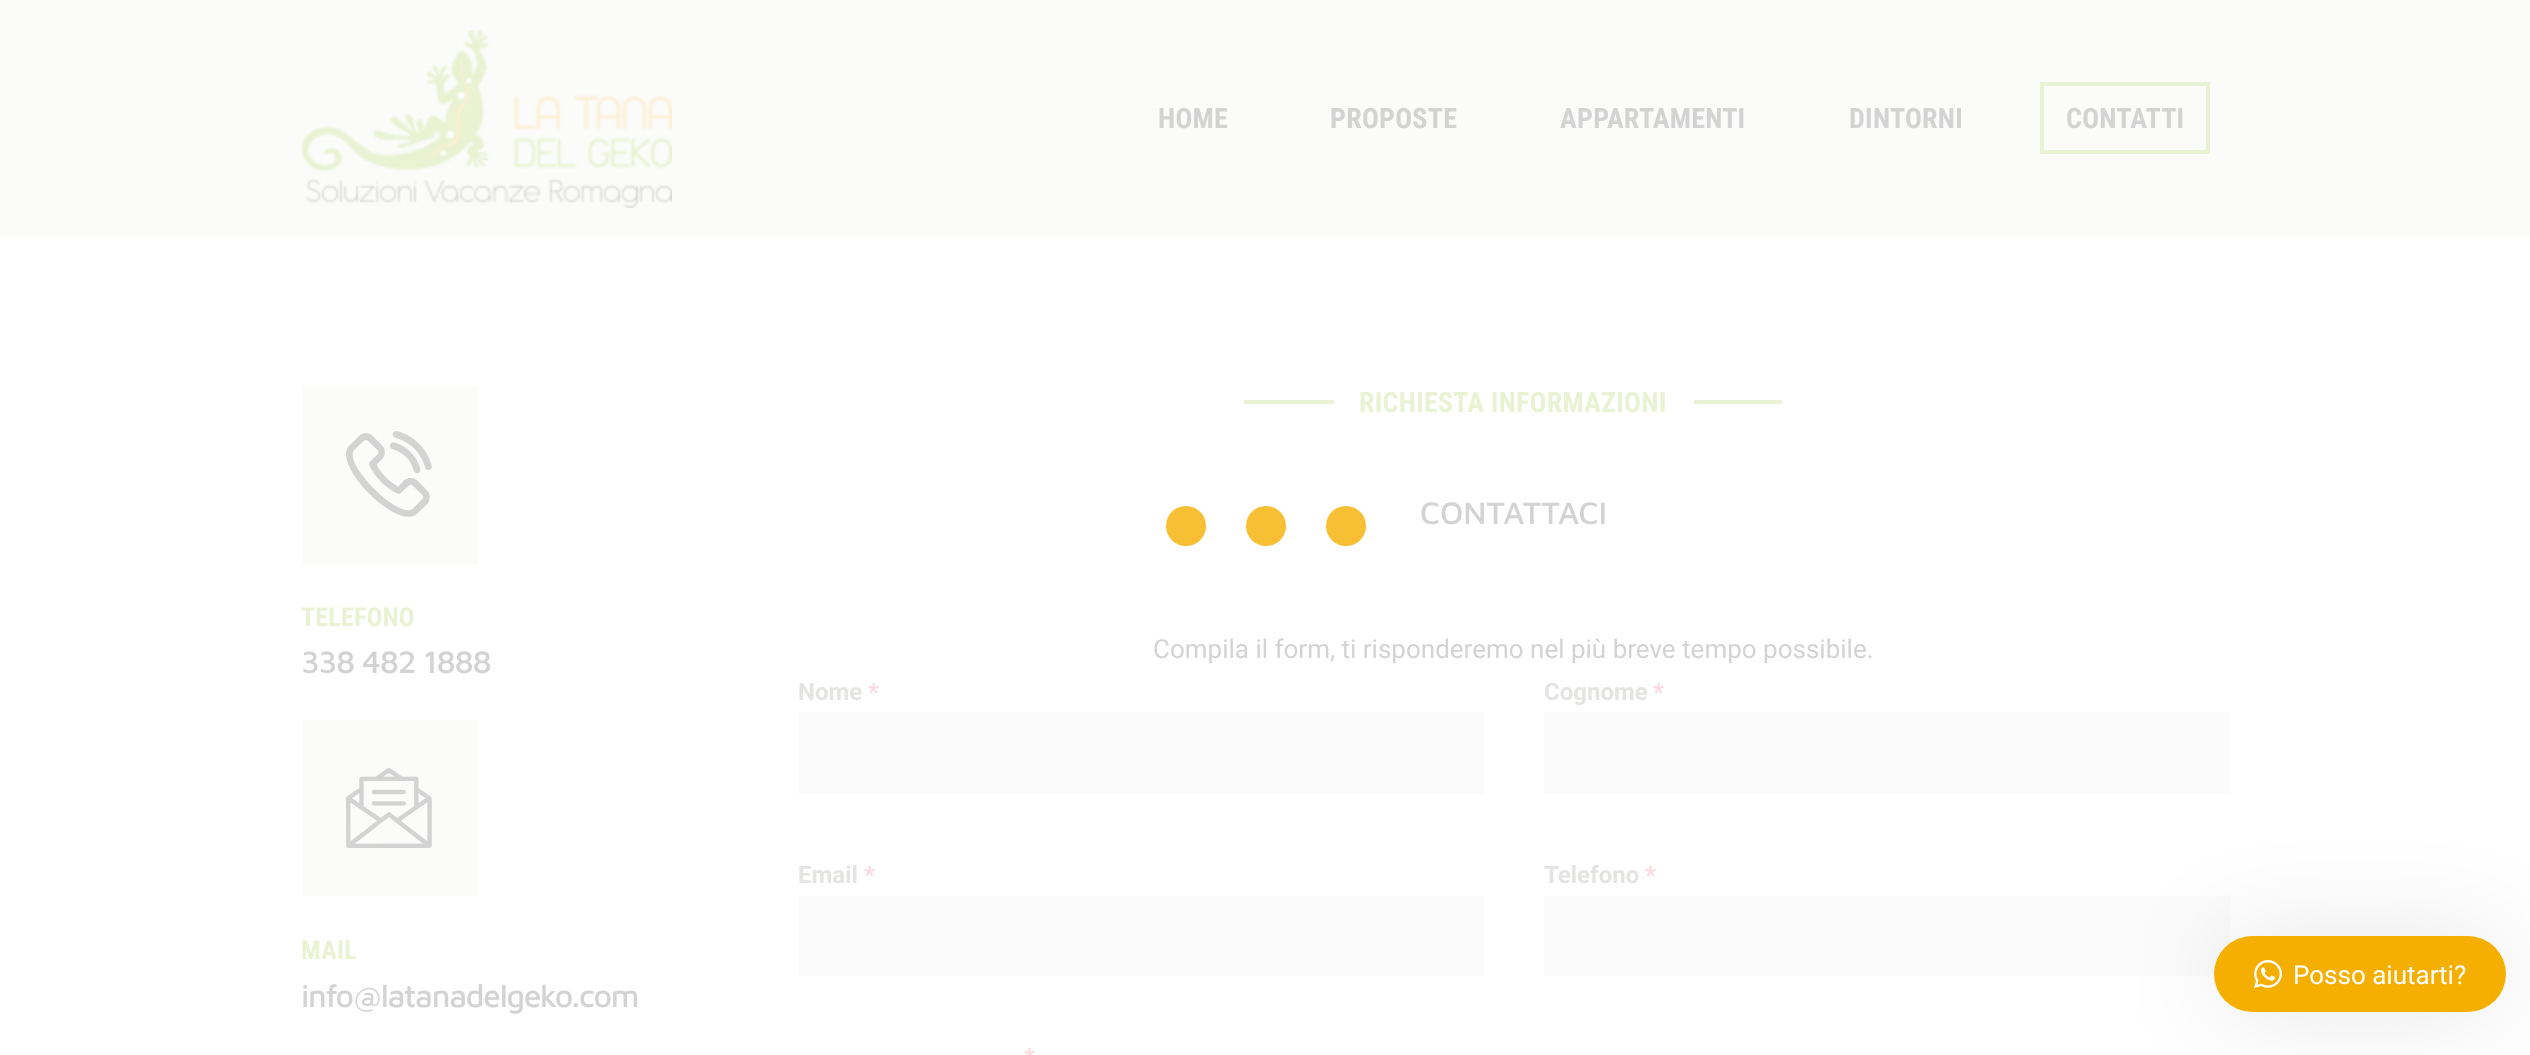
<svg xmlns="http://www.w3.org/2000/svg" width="2530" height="1055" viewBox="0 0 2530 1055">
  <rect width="100%" height="100%" fill="rgb(255,255,255)"/>
  <rect x="0" y="0" width="2530" height="236" fill="rgb(251,251,250)"/>
  <image x="302" y="30" width="370" height="178" href="pic1.png"/>
  <g font-family="Roboto Condensed" font-size="28" font-weight="bold" letter-spacing="0.25" fill="rgb(212,211,211)">
    <text x="1158" y="128">HOME</text>
    <text x="1330" y="128">PROPOSTE</text>
    <text x="1560" y="128">APPARTAMENTI</text>
    <text x="1849" y="128">DINTORNI</text>
  </g>
  <rect x="2040" y="82" width="4" height="72" fill="rgb(233,242,210)"/>
  <rect x="2040" y="82" width="170" height="4" fill="rgb(233,242,210)"/>
  <text x="2066" y="128" font-family="Roboto Condensed" font-size="28" font-weight="bold" letter-spacing="0.25" fill="rgb(212,211,211)">CONTATTI</text>
  <rect x="2040" y="150" width="170" height="4" fill="rgb(233,242,210)"/>
  <rect x="2206" y="82" width="4" height="72" fill="rgb(233,242,210)"/>
  <rect x="302" y="386" width="176" height="178" fill="rgb(251,251,250)"/>
  <image x="346" y="431" width="86" height="86" href="pic2.png"/>
  <text x="301" y="626" font-family="Roboto Condensed" font-size="26" font-weight="bold" letter-spacing="0.25" fill="rgb(233,242,210)">TELEFONO</text>
  <text x="301" y="673" font-family="Maven Pro" font-size="32" font-weight="500" letter-spacing="-1.3" fill="rgb(212,211,211)">338 482 1888</text>
  <rect x="302" y="720" width="176" height="176" fill="rgb(251,251,250)"/>
  <image x="346" y="767" width="86" height="82" href="pic3.png"/>
  <text x="301" y="959" font-family="Roboto Condensed" font-size="26" font-weight="bold" letter-spacing="0.25" fill="rgb(233,242,210)">MAIL</text>
  <text x="301" y="1007" font-family="Maven Pro" font-size="32" font-weight="500" letter-spacing="-1.3" fill="rgb(212,211,211)">info@latanadelgeko.com</text>
  <rect x="1244" y="400" width="90" height="4" fill="rgb(233,242,210)"/>
  <text x="1359" y="412" font-family="Roboto Condensed" font-size="28" font-weight="bold" letter-spacing="0.25" fill="rgb(233,242,210)">RICHIESTA INFORMAZIONI</text>
  <rect x="1694" y="400" width="88" height="4" fill="rgb(233,242,210)"/>
  <text x="1420" y="524" font-family="Maven Pro" font-size="32" font-weight="500" fill="rgb(212,211,211)">CONTATTACI</text>
  <text x="1153" y="658" font-family="Roboto" font-size="26" fill="rgb(212,211,211)">Compila il form, ti risponderemo nel più breve tempo possibile.</text>
  <text x="798" y="700" font-family="Roboto" font-size="24" font-weight="bold" fill="rgb(228,228,227)">Nome</text>
  <text x="868" y="700" font-family="Roboto" font-size="24" font-weight="bold" fill="rgb(249,218,224)">*</text>
  <rect x="798" y="712" width="686" height="82" fill="rgb(251,251,251)"/>
  <text x="1544" y="700" font-family="Roboto" font-size="24" font-weight="bold" fill="rgb(228,228,227)">Cognome</text>
  <text x="1653" y="700" font-family="Roboto" font-size="24" font-weight="bold" fill="rgb(249,218,224)">*</text>
  <rect x="1544" y="712" width="686" height="82" fill="rgb(251,251,251)"/>
  <text x="798" y="883" font-family="Roboto" font-size="24" font-weight="bold" fill="rgb(228,228,227)">Email</text>
  <text x="864" y="883" font-family="Roboto" font-size="24" font-weight="bold" fill="rgb(249,218,224)">*</text>
  <rect x="798" y="896" width="686" height="80" fill="rgb(251,251,251)"/>
  <text x="1544" y="883" font-family="Roboto" font-size="24" font-weight="bold" fill="rgb(228,228,227)">Telefono</text>
  <text x="1645" y="883" font-family="Roboto" font-size="24" font-weight="bold" fill="rgb(249,218,224)">*</text>
  <rect x="1544" y="896" width="686" height="80" fill="rgb(251,251,251)"/>
  <text x="1024" y="1065" font-family="Roboto" font-size="24" font-weight="bold" fill="rgb(249,218,224)">*</text>
  <circle cx="1186" cy="526" r="20" fill="rgb(247,191,52)"/>
  <circle cx="1266" cy="526" r="20" fill="rgb(247,191,52)"/>
  <circle cx="1346" cy="526" r="20" fill="rgb(247,191,52)"/>
  <rect x="2214" y="936" width="292" height="76" rx="38" fill="rgba(0,0,0,0.1)" filter="blur(50px)"/>
  <rect x="2214" y="936" width="292" height="76" rx="38" fill="rgb(245,175,1)"/>
  <image x="2254" y="960" width="28" height="28" href="pic4.png"/>
  <text x="2293" y="984" font-family="Roboto" font-size="26" fill="rgb(255,255,255)">Posso aiutarti?</text>
</svg>
